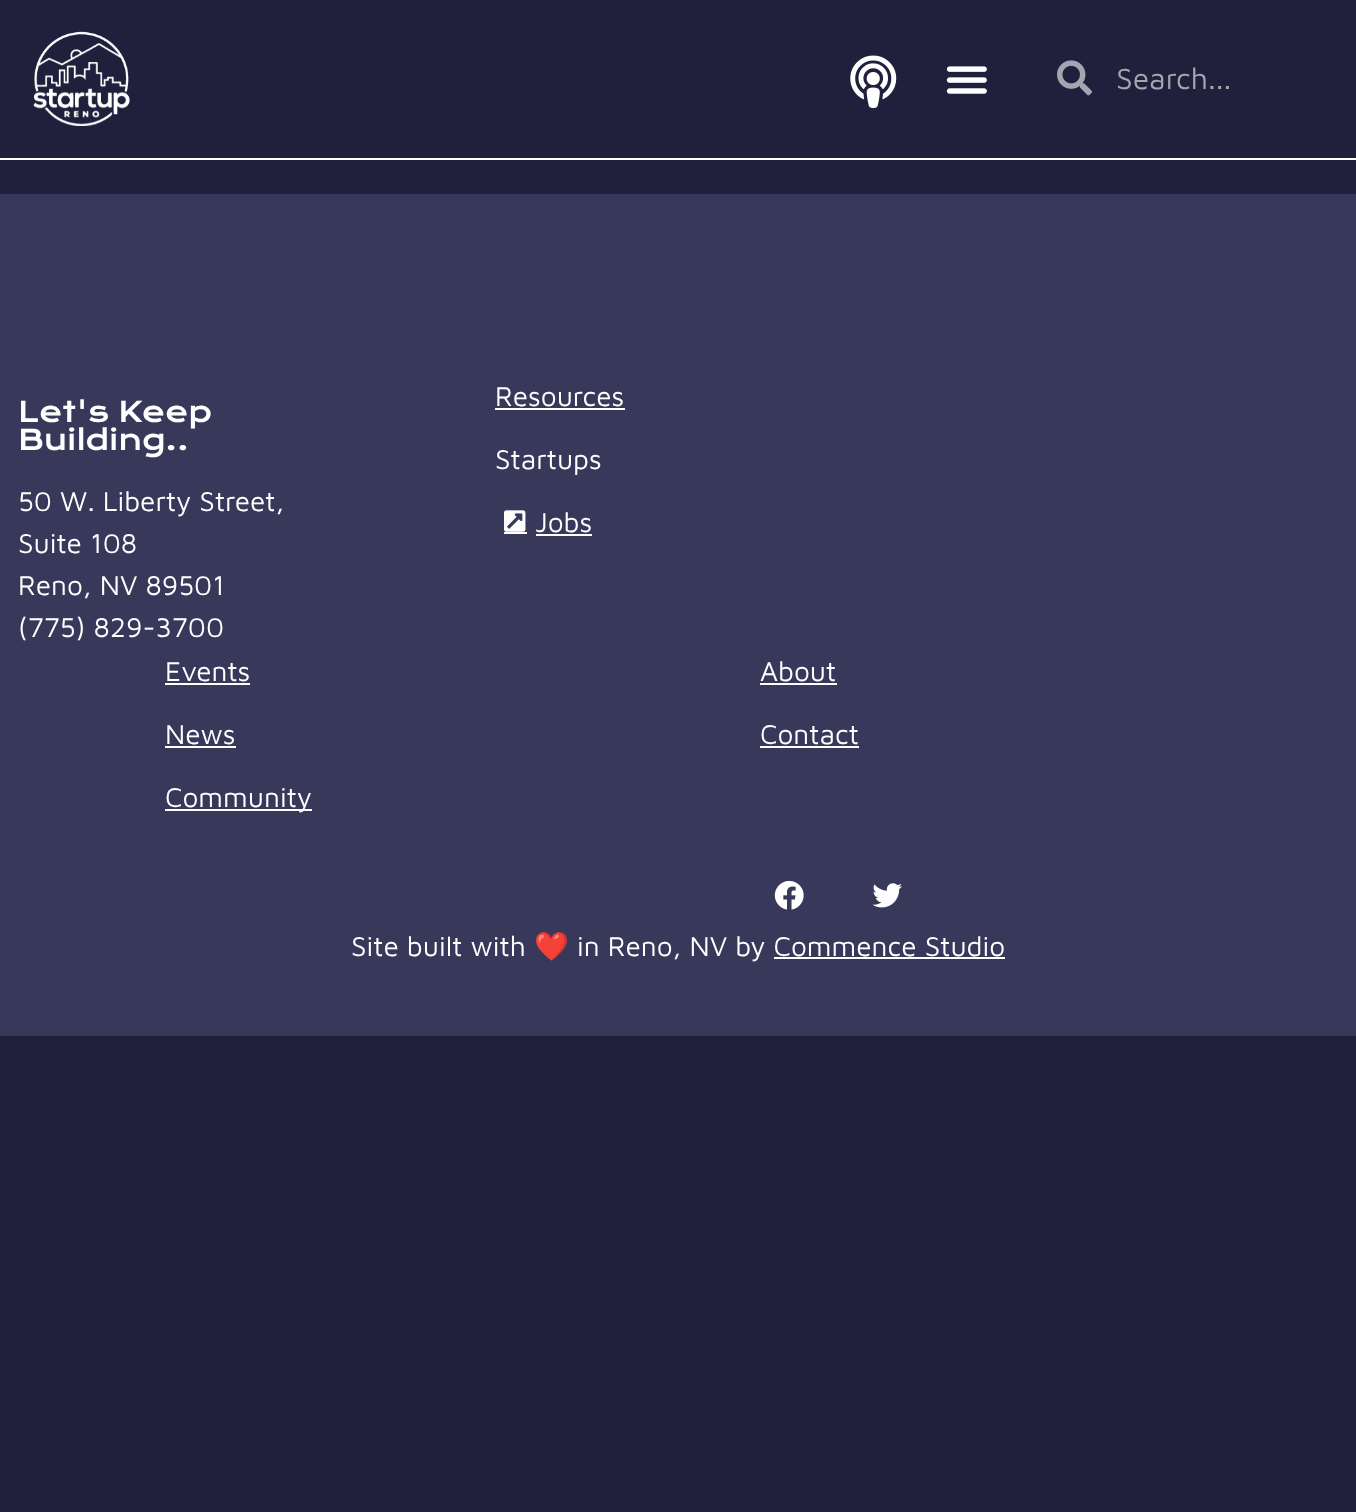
<svg xmlns="http://www.w3.org/2000/svg" width="1356" height="1512" viewBox="0 0 1356 1512">
  <rect width="100%" height="100%" fill="rgb(32,32,60)"/>
  <rect x="0" y="158" width="1356" height="2" fill="rgb(255,255,255)"/>
  <image x="33" y="31" width="97" height="95" href="pic1.png"/>
  <image x="850" y="55" width="47" height="54" href="pic2.png"/>
  <image x="946" y="66" width="41" height="28" href="pic3.png"/>
  <image x="1057" y="60" width="35" height="36" href="pic4.png"/>
  <text x="1116" y="89" font-family="Maven Pro" font-size="30" fill="rgb(166,166,177)">Search...</text>
  <rect x="0" y="194" width="1356" height="842" fill="rgb(56,56,90)"/>
  <g font-family="Krona One" font-size="28" fill="rgb(255,255,255)">
    <text>
      <tspan x="18" y="422">Let's Keep</tspan>
      <tspan x="18" y="450">Building..</tspan>
    </text>
  </g>
  <g font-family="Maven Pro" font-size="28" fill="rgb(255,255,255)">
    <text>
      <tspan x="18" y="511">50 W. Liberty Street,</tspan>
      <tspan x="18" y="553">Suite 108</tspan>
      <tspan x="18" y="595">Reno, NV 89501</tspan>
      <tspan x="18" y="637">(775) 829-3700</tspan>
    </text>
    <text x="495" y="406">Resources</text>
  </g>
  <rect x="495" y="408" width="130" height="2" fill="rgb(255,255,255)"/>
  <text x="495" y="469" font-family="Maven Pro" font-size="28" fill="rgb(255,255,255)">Startups</text>
  <image x="504" y="510" width="22" height="22" href="pic5.png"/>
  <rect x="504" y="532" width="23" height="2" fill="rgb(255,255,255)"/>
  <text x="535" y="532" font-family="Maven Pro" font-size="28" fill="rgb(255,255,255)">Jobs</text>
  <rect x="536" y="534" width="56" height="2" fill="rgb(255,255,255)"/>
  <text x="165" y="681" font-family="Maven Pro" font-size="28" fill="rgb(255,255,255)">Events</text>
  <rect x="165" y="683" width="85" height="2" fill="rgb(255,255,255)"/>
  <text x="165" y="744" font-family="Maven Pro" font-size="28" fill="rgb(255,255,255)">News</text>
  <rect x="165" y="746" width="71" height="2" fill="rgb(255,255,255)"/>
  <rect x="165" y="809" width="147" height="2" fill="rgb(255,255,255)"/>
  <g font-family="Maven Pro" font-size="28" fill="rgb(255,255,255)">
    <text x="165" y="807">Community</text>
    <text x="760" y="681">About</text>
  </g>
  <rect x="760" y="683" width="77" height="2" fill="rgb(255,255,255)"/>
  <text x="760" y="744" font-family="Maven Pro" font-size="28" fill="rgb(255,255,255)">Contact</text>
  <rect x="760" y="746" width="99" height="2" fill="rgb(255,255,255)"/>
  <image x="774" y="880" width="30" height="30" href="pic6.png"/>
  <image x="872" y="883" width="30" height="25" href="pic7.png"/>
  <text x="351" y="956" font-family="Maven Pro" font-size="28" fill="rgb(255,255,255)">Site built with</text>
  <text x="534" y="956" font-family="Noto Color Emoji" font-size="28" fill="rgb(255,255,255)">❤️</text>
  <text x="577" y="956" font-family="Maven Pro" font-size="28" fill="rgb(255,255,255)">in Reno, NV by Commence Studio</text>
  <rect x="774" y="957" width="231" height="2" fill="rgb(255,255,255)"/>
</svg>
